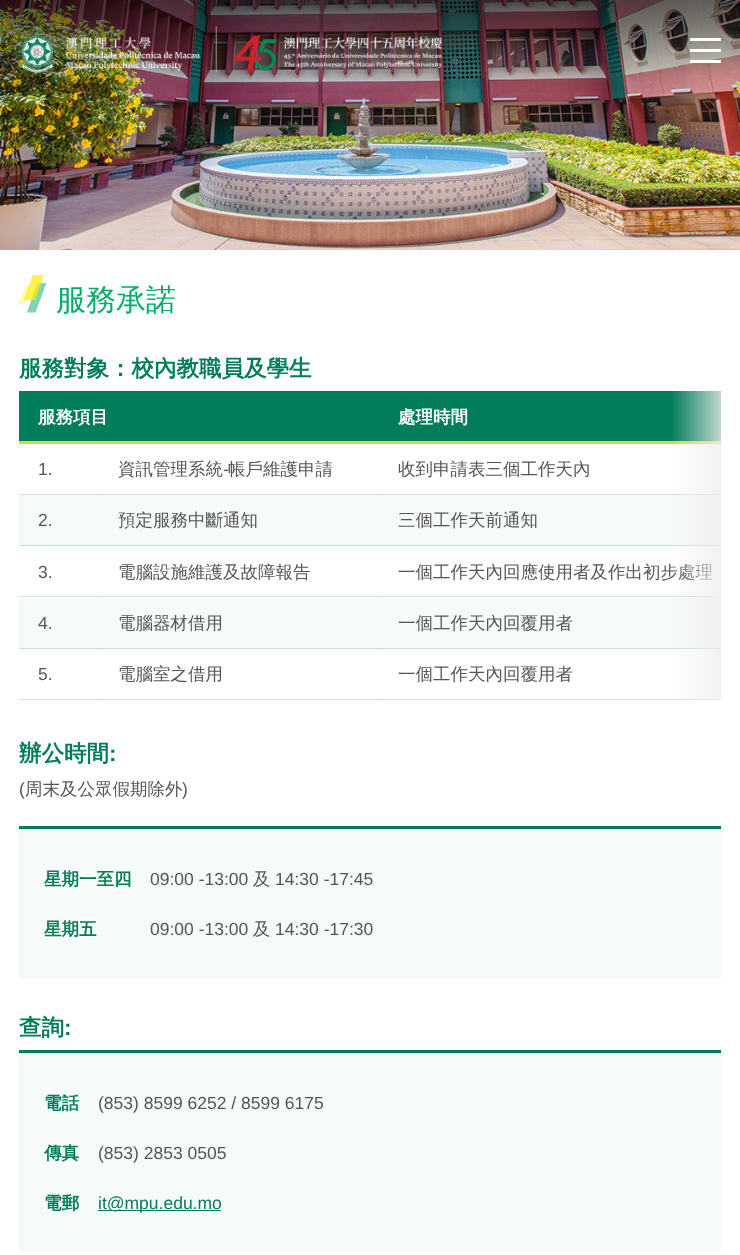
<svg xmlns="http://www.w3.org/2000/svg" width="740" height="1255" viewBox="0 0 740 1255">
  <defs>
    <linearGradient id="g1" gradientUnits="userSpaceOnUse" x1="671" y1="546" x2="721" y2="546"><stop offset="0" stop-color="rgb(238,238,236)" stop-opacity="0"/><stop offset="0.5" stop-color="rgb(238,238,236)" stop-opacity="0.4"/><stop offset="1" stop-color="rgb(238,238,236)" stop-opacity="0.8"/></linearGradient>
  </defs>
  <rect width="100%" height="100%" fill="rgb(255,255,255)"/>
  <image x="0" y="0" width="740" height="250" href="pic2.png"/>
  <image x="0" y="0" width="740" height="93" href="pic3.png"/>
  <image x="18" y="26" width="425" height="47" href="pic1.png"/>
  <rect x="690" y="49" width="31" height="3" fill="rgb(255,255,255)"/>
  <rect x="690" y="38" width="31" height="3" fill="rgb(255,255,255)"/>
  <rect x="690" y="60" width="31" height="3" fill="rgb(255,255,255)"/>
  <rect x="19" y="494" width="702" height="1" fill="rgb(204,229,222)"/>
  <rect x="99" y="494" width="1" height="1" fill="rgb(164,208,196)"/>
  <rect x="19" y="596" width="702" height="1" fill="rgb(204,229,222)"/>
  <rect x="99" y="596" width="1" height="1" fill="rgb(164,208,196)"/>
  <rect x="19" y="699" width="702" height="1" fill="rgb(204,229,222)"/>
  <rect x="99" y="699" width="1" height="1" fill="rgb(164,208,196)"/>
  <image x="18" y="275" width="29" height="38" href="pic4.png"/>
  <text x="56" y="310" font-family="WenQuanYi Zen Hei" font-size="30" font-weight="500" fill="rgb(0,172,105)">服務承諾</text>
  <text x="19" y="376" font-family="WenQuanYi Zen Hei" font-size="22.5" font-weight="bold" fill="rgb(2,125,91)">服務對象：校內教職員及學生</text>
  <rect x="19" y="391" width="702" height="50" fill="rgb(2,125,91)"/>
  <rect x="19" y="441" width="702" height="3" fill="rgb(209,220,56)"/>
  <rect x="19" y="495" width="702" height="50" fill="rgb(246,250,249)"/>
  <rect x="19" y="545" width="702" height="1" fill="rgb(197,225,217)"/>
  <text x="398" y="578" font-family="WenQuanYi Zen Hei" font-size="17.5" font-weight="500" fill="rgb(85,85,85)">一個工作天內回應使用者及作出初步處理</text>
  <rect x="19" y="598" width="702" height="50" fill="rgb(246,250,249)"/>
  <rect x="19" y="648" width="702" height="1" fill="rgb(197,225,217)"/>
  <rect x="672" y="391" width="49" height="309" fill="url(#g1)"/>
  <g font-family="WenQuanYi Zen Hei" font-size="17.5" font-weight="bold" fill="rgb(255,255,255)">
    <text x="38" y="423">服務項目</text>
    <text x="398" y="423">處理時間</text>
  </g>
  <text x="38" y="475" font-family="Liberation Sans" font-size="17.5" fill="rgb(85,85,85)">1.</text>
  <text x="118" y="475" font-family="WenQuanYi Zen Hei" font-size="17.5" font-weight="500" fill="rgb(85,85,85)">資訊管理系統</text>
  <text x="223" y="475" font-family="Liberation Sans" font-size="17.5" fill="rgb(85,85,85)">-</text>
  <text x="228" y="475" font-family="WenQuanYi Zen Hei" font-size="17.5" font-weight="500" fill="rgb(85,85,85)">帳戶維護申請</text>
  <rect x="379" y="494" width="1" height="1" fill="rgb(164,208,196)"/>
  <text x="398" y="475" font-family="WenQuanYi Zen Hei" font-size="17.5" font-weight="500" fill="rgb(85,85,85)">收到申請表三個工作天內</text>
  <text x="38" y="526" font-family="Liberation Sans" font-size="17.5" fill="rgb(85,85,85)">2.</text>
  <rect x="99" y="545" width="1" height="1" fill="rgb(158,205,192)"/>
  <text x="118" y="526" font-family="WenQuanYi Zen Hei" font-size="17.5" font-weight="500" fill="rgb(85,85,85)">預定服務中斷通知</text>
  <rect x="379" y="545" width="1" height="1" fill="rgb(158,205,192)"/>
  <text x="398" y="526" font-family="WenQuanYi Zen Hei" font-size="17.5" font-weight="500" fill="rgb(85,85,85)">三個工作天前通知</text>
  <text x="38" y="578" font-family="Liberation Sans" font-size="17.5" fill="rgb(85,85,85)">3.</text>
  <text x="118" y="578" font-family="WenQuanYi Zen Hei" font-size="17.5" font-weight="500" fill="rgb(85,85,85)">電腦設施維護及故障報告</text>
  <rect x="379" y="596" width="1" height="1" fill="rgb(164,208,196)"/>
  <text x="38" y="629" font-family="Liberation Sans" font-size="17.5" fill="rgb(85,85,85)">4.</text>
  <rect x="99" y="648" width="1" height="1" fill="rgb(158,205,192)"/>
  <text x="118" y="629" font-family="WenQuanYi Zen Hei" font-size="17.5" font-weight="500" fill="rgb(85,85,85)">電腦器材借用</text>
  <rect x="379" y="648" width="1" height="1" fill="rgb(158,205,192)"/>
  <text x="398" y="629" font-family="WenQuanYi Zen Hei" font-size="17.5" font-weight="500" fill="rgb(85,85,85)">一個工作天內回覆用者</text>
  <text x="38" y="680" font-family="Liberation Sans" font-size="17.5" fill="rgb(85,85,85)">5.</text>
  <text x="118" y="680" font-family="WenQuanYi Zen Hei" font-size="17.5" font-weight="500" fill="rgb(85,85,85)">電腦室之借用</text>
  <rect x="379" y="699" width="1" height="1" fill="rgb(164,208,196)"/>
  <text x="398" y="680" font-family="WenQuanYi Zen Hei" font-size="17.5" font-weight="500" fill="rgb(85,85,85)">一個工作天內回覆用者</text>
  <text x="19" y="761" font-family="WenQuanYi Zen Hei" font-size="22.5" font-weight="bold" fill="rgb(2,125,91)">辦公時間</text>
  <text x="109" y="761" font-family="Liberation Sans" font-size="22.5" font-weight="bold" fill="rgb(2,125,91)">:</text>
  <text x="19" y="795" font-family="Liberation Sans" font-size="17.5" fill="rgb(85,85,85)">(</text>
  <text x="25" y="795" font-family="WenQuanYi Zen Hei" font-size="17.5" font-weight="500" fill="rgb(85,85,85)">周末及公眾假期除外</text>
  <text x="182" y="795" font-family="Liberation Sans" font-size="17.5" fill="rgb(85,85,85)">)</text>
  <rect x="19" y="829" width="702" height="150" fill="rgb(246,250,249)"/>
  <rect x="19" y="826" width="702" height="3" fill="rgb(2,125,91)"/>
  <text x="44" y="885" font-family="WenQuanYi Zen Hei" font-size="17.5" font-weight="bold" fill="rgb(2,125,91)">星期一至四</text>
  <text x="150" y="885" font-family="Liberation Sans" font-size="17.5" fill="rgb(85,85,85)">09:00 -13:00</text>
  <text x="253" y="885" font-family="WenQuanYi Zen Hei" font-size="17.5" font-weight="500" fill="rgb(85,85,85)">及</text>
  <text x="275" y="885" font-family="Liberation Sans" font-size="17.5" fill="rgb(85,85,85)">14:30 -17:45</text>
  <text x="44" y="935" font-family="WenQuanYi Zen Hei" font-size="17.5" font-weight="bold" fill="rgb(2,125,91)">星期五</text>
  <text x="150" y="935" font-family="Liberation Sans" font-size="17.5" fill="rgb(85,85,85)">09:00 -13:00</text>
  <text x="253" y="935" font-family="WenQuanYi Zen Hei" font-size="17.5" font-weight="500" fill="rgb(85,85,85)">及</text>
  <text x="275" y="935" font-family="Liberation Sans" font-size="17.5" fill="rgb(85,85,85)">14:30 -17:30</text>
  <text x="19" y="1035" font-family="WenQuanYi Zen Hei" font-size="22.5" font-weight="bold" fill="rgb(2,125,91)">查詢</text>
  <text x="64" y="1035" font-family="Liberation Sans" font-size="22.5" font-weight="bold" fill="rgb(2,125,91)">:</text>
  <rect x="19" y="1053" width="702" height="200" fill="rgb(246,250,249)"/>
  <rect x="19" y="1050" width="702" height="3" fill="rgb(2,125,91)"/>
  <text x="44" y="1109" font-family="WenQuanYi Zen Hei" font-size="17.5" font-weight="bold" fill="rgb(2,125,91)">電話</text>
  <text x="98" y="1109" font-family="Liberation Sans" font-size="17.5" fill="rgb(85,85,85)">(853) 8599 6252 / 8599 6175</text>
  <text x="44" y="1159" font-family="WenQuanYi Zen Hei" font-size="17.5" font-weight="bold" fill="rgb(2,125,91)">傳真</text>
  <text x="98" y="1159" font-family="Liberation Sans" font-size="17.5" fill="rgb(85,85,85)">(853) 2853 0505</text>
  <text x="44" y="1209" font-family="WenQuanYi Zen Hei" font-size="17.5" font-weight="bold" fill="rgb(2,125,91)">電郵</text>
  <rect x="98" y="1210" width="123" height="1" fill="rgb(2,125,91)"/>
  <text x="98" y="1209" font-family="Liberation Sans" font-size="17.5" fill="rgb(2,125,91)">it@mpu.edu.mo</text>
</svg>
